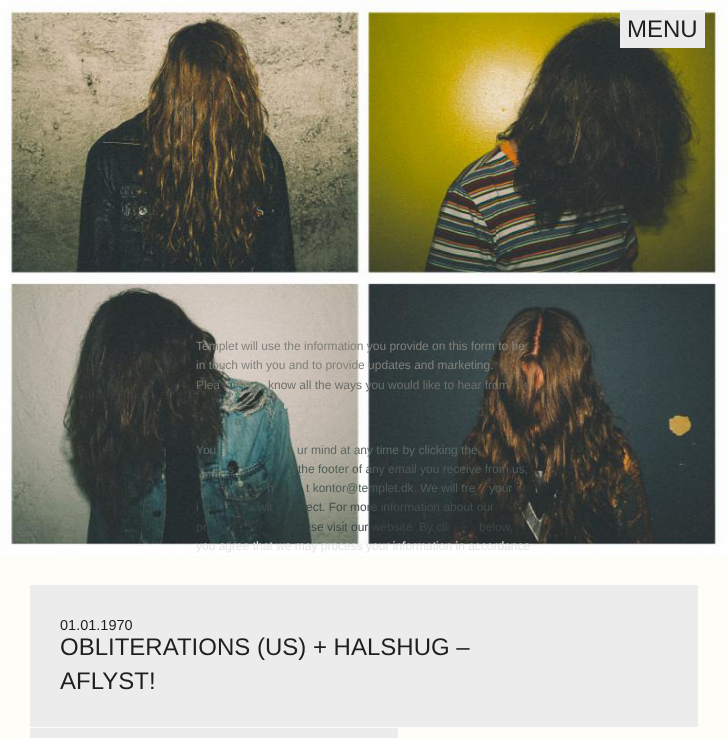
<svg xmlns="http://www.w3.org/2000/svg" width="728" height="738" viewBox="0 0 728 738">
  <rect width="100%" height="100%" fill="rgb(255,253,247)"/>
  <image x="0" y="0" width="728" height="555" href="pic1.png"/>
  <rect x="620" y="10" width="85" height="38" fill="rgb(236,236,236)"/>
  <text x="627" y="37" font-family="Liberation Sans" font-size="24" fill="rgb(31,31,31)">MENU</text>
  <g font-family="Liberation Sans" font-size="12" fill="rgb(130,129,123)">
    <text>
      <tspan x="196" y="350">Templet will use the information you provide on this form to be</tspan>
      <tspan x="196" y="369">in touch with you and to provide updates and marketing.</tspan>
    </text>
  </g>
  <g font-family="Liberation Sans" font-size="12" fill="rgb(109,111,106)">
    <text x="196" y="389">Plea</text>
    <text x="268" y="389">know all the ways you would like to hear from</text>
    <text x="524" y="389">:</text>
  </g>
  <text x="235" y="425" font-family="Liberation Sans" font-size="12" font-weight="bold" fill="rgb(88,117,114)">a</text>
  <g font-family="Liberation Sans" font-size="12" fill="rgb(92,106,103)">
    <text x="196" y="454">You</text>
    <text x="297" y="454">ur mind at any time by clicking the</text>
  </g>
  <g font-family="Liberation Sans" font-size="12" fill="rgb(80,91,88)">
    <text x="228" y="473">s</text>
    <text x="298" y="473">the footer of any email you receive from us,</text>
    <text x="267" y="492">n</text>
    <text x="306" y="492">t kontor@templet.dk. We will tre</text>
    <text x="489" y="492">your</text>
  </g>
  <g font-family="Liberation Sans" font-size="12" fill="rgb(68,79,77)">
    <text x="196" y="511">i</text>
    <text x="258" y="511">wit</text>
    <text x="306" y="511">ect. For more information about our</text>
  </g>
  <g font-family="Liberation Sans" font-size="12" fill="rgb(62,71,70)">
    <text x="196" y="531">pr</text>
    <text x="311" y="531">se visit our website. By cli</text>
    <text x="479" y="531">below,</text>
  </g>
  <text x="196" y="550" font-family="Liberation Sans" font-size="12" fill="rgb(228,229,229)">you agree that we may process your information in accordance</text>
  <rect x="30" y="585" width="668" height="142" fill="rgb(236,236,236)"/>
  <text x="60" y="630" font-family="Liberation Sans" font-size="14.5" fill="rgb(31,31,31)">01.01.1970</text>
  <g font-family="Liberation Sans" font-size="24" fill="rgb(31,31,31)">
    <text>
      <tspan x="60" y="655">OBLITERATIONS (US) + HALSHUG –</tspan>
      <tspan x="60" y="689">AFLYST!</tspan>
    </text>
  </g>
  <rect x="30" y="728" width="368" height="10" fill="rgb(236,236,236)"/>
</svg>
